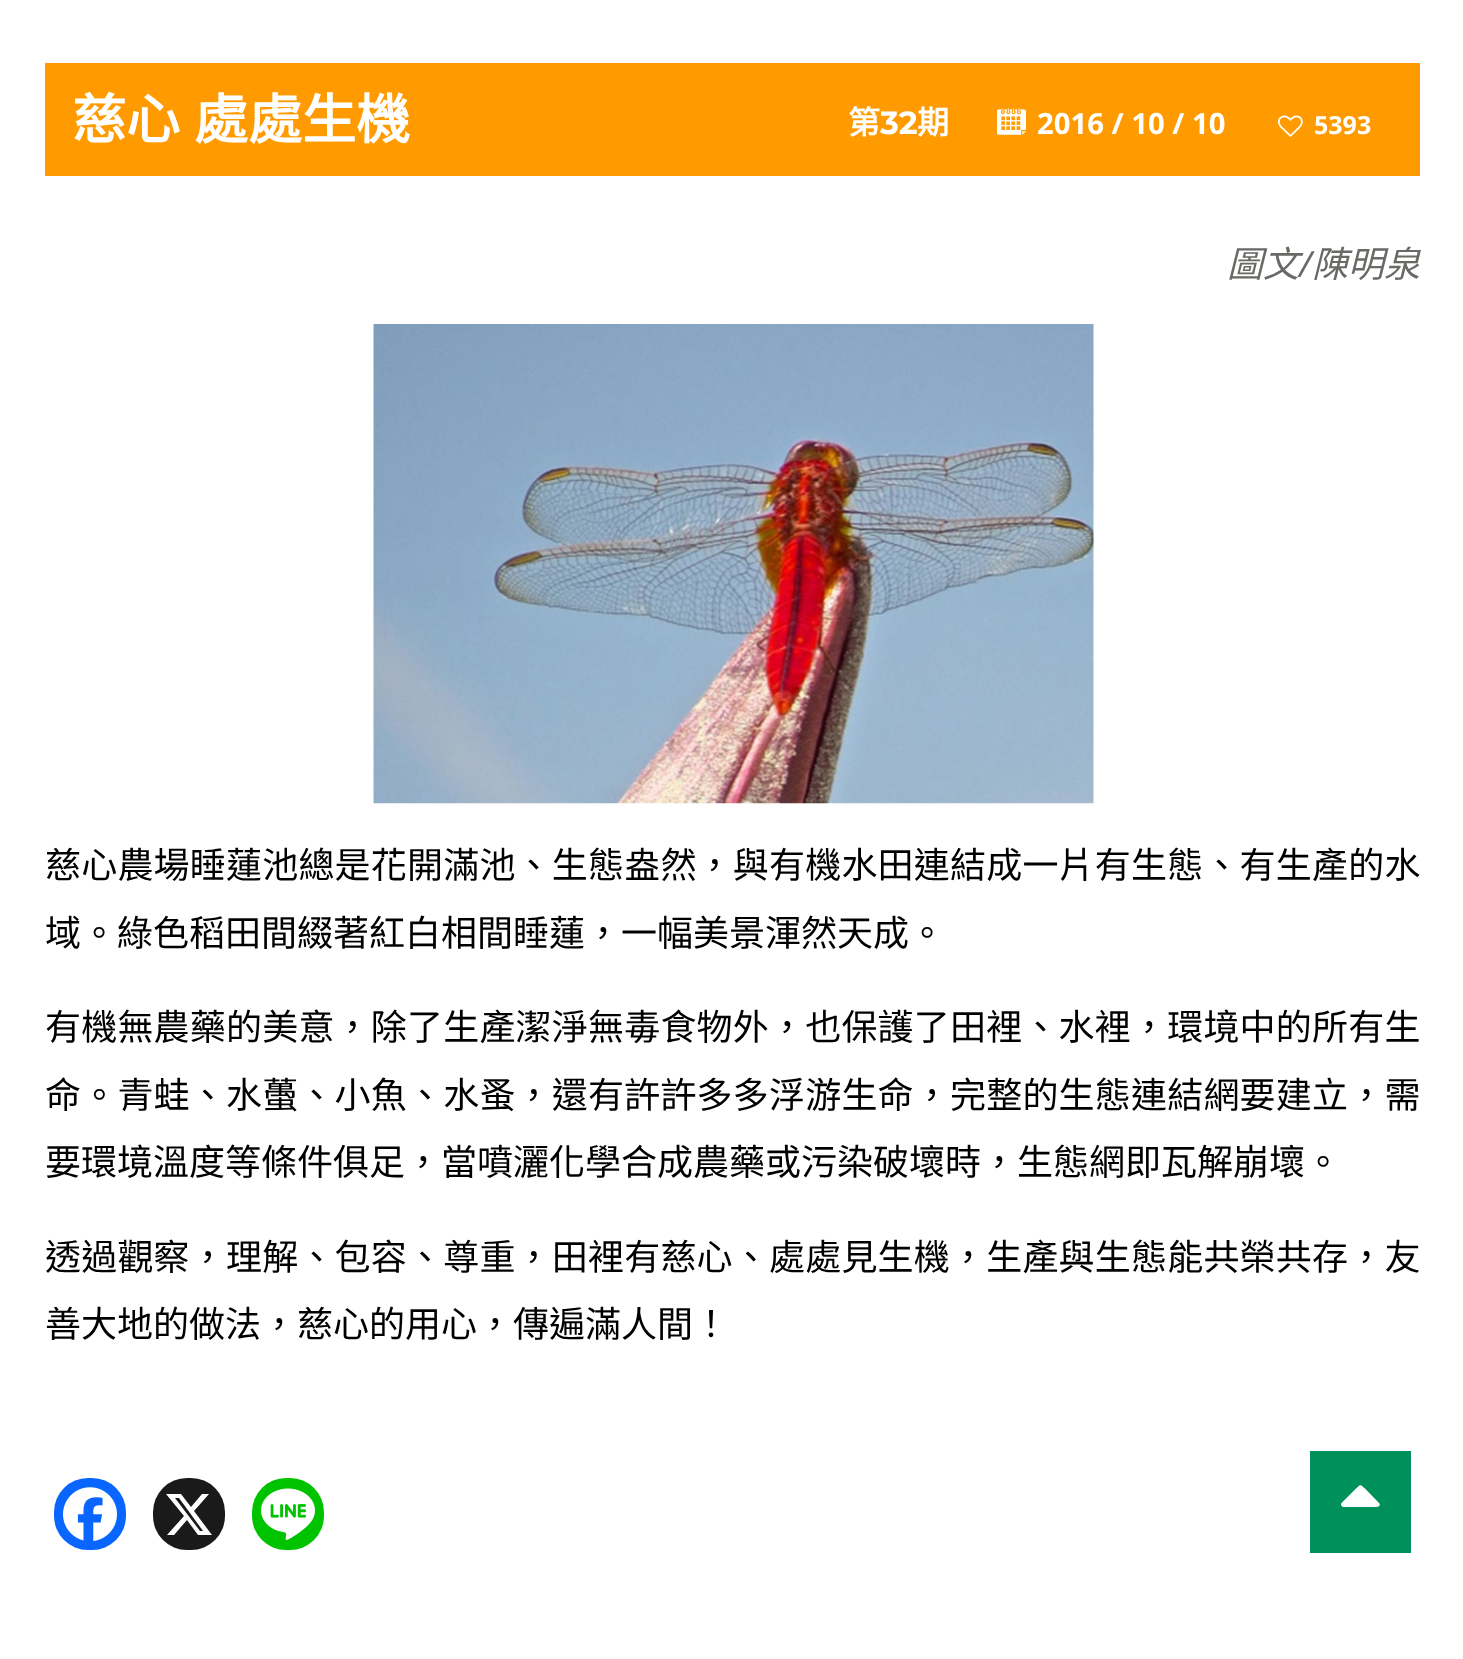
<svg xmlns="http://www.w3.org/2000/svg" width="1463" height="1659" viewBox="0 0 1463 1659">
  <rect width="100%" height="100%" fill="rgb(255,255,255)"/>
  <rect x="45" y="63" width="1375" height="113" fill="rgb(255,155,0)"/>
  <g font-family="Noto Sans CJK TC" font-size="54" font-weight="bold" fill="rgb(255,255,255)">
    <text x="72" y="139">慈心</text>
    <text x="194" y="139">處處生機</text>
  </g>
  <text x="848" y="134" font-family="Noto Sans CJK TC" font-size="32" font-weight="bold" fill="rgb(255,255,255)">第</text>
  <text x="880" y="134" font-family="Montserrat" font-size="32" font-weight="bold" fill="rgb(255,255,255)">32</text>
  <text x="917" y="134" font-family="Noto Sans CJK TC" font-size="32" font-weight="bold" fill="rgb(255,255,255)">期</text>
  <image x="997" y="108" width="29" height="27" href="pic1.png"/>
  <text x="1037" y="134" font-family="Open Sans" font-size="29.25" font-weight="bold" fill="rgb(255,255,255)">2016 / 10 / 10</text>
  <image x="1278" y="115" width="25" height="22" href="pic2.png"/>
  <text x="1314" y="134" font-family="Open Sans" font-size="25" font-weight="bold" fill="rgb(255,255,255)">5393</text>
  <text x="1227" y="277" font-family="Noto Sans CJK TC" font-size="36" font-style="italic" fill="rgb(106,105,102)">圖文</text>
  <text x="1299" y="277" font-family="Open Sans" font-size="36" font-style="italic" fill="rgb(106,105,102)">/</text>
  <text x="1312" y="277" font-family="Noto Sans CJK TC" font-size="36" font-style="italic" fill="rgb(106,105,102)">陳明泉</text>
  <image x="373" y="324" width="721" height="480" href="pic3.png"/>
  <text x="45" y="878" font-family="Noto Sans CJK TC" font-size="36" letter-spacing="0.2" fill="rgb(0,0,0)">慈心農場睡蓮池總是花開滿池、生態盎然，與有機水田連結成一片有生態、有生產的水</text>
  <text x="45" y="946" font-family="Noto Sans CJK TC" font-size="36" fill="rgb(0,0,0)">域。綠色稻田間綴著紅白相間睡蓮，一幅美景渾然天成。</text>
  <g font-family="Noto Sans CJK TC" font-size="36" letter-spacing="0.2" fill="rgb(0,0,0)">
    <text>
      <tspan x="45" y="1040">有機無農藥的美意，除了生產潔淨無毒食物外，也保護了田裡、水裡，環境中的所有生</tspan>
      <tspan x="45" y="1108">命。青蛙、水蠆、小魚、水蚤，還有許許多多浮游生命，完整的生態連結網要建立，需</tspan>
    </text>
  </g>
  <text x="45" y="1175" font-family="Noto Sans CJK TC" font-size="36" fill="rgb(0,0,0)">要環境溫度等條件俱足，當噴灑化學合成農藥或污染破壞時，生態網即瓦解崩壞。</text>
  <text x="45" y="1270" font-family="Noto Sans CJK TC" font-size="36" letter-spacing="0.2" fill="rgb(0,0,0)">透過觀察，理解、包容、尊重，田裡有慈心、處處見生機，生產與生態能共榮共存，友</text>
  <text x="45" y="1337" font-family="Noto Sans CJK TC" font-size="36" fill="rgb(0,0,0)">善大地的做法，慈心的用心，傳遍滿人間！</text>
  <rect x="54" y="1478" width="72" height="72" rx="34" fill="rgb(8,102,255)"/>
  <image x="63" y="1487" width="54" height="54" href="pic4.png"/>
  <rect x="153" y="1478" width="72" height="72" rx="34" fill="rgb(26,26,26)"/>
  <path d="M202 1494H209L194 1511L212 1535H198L187 1520L174 1535H167L184 1516L166 1494H181L191 1507ZM200 1531H203L179 1498H175Z" fill="rgb(255,255,255)"/>
  <rect x="252" y="1478" width="72" height="72" rx="34" fill="rgb(0,195,0)"/>
  <image x="261" y="1488" width="54" height="52" href="pic5.png"/>
  <rect x="1310" y="1451" width="101" height="102" fill="rgb(0,144,92)"/>
  <path d="M1379 1503L1379.5 1503.5C1381.5 1508 1372.5 1507 1371.5 1507H1343C1341 1506.5 1340.5 1504 1341.5 1503L1356 1488.5C1360.5 1484 1360 1484 1365 1488.5Z" fill="rgb(255,255,255)"/>
</svg>
